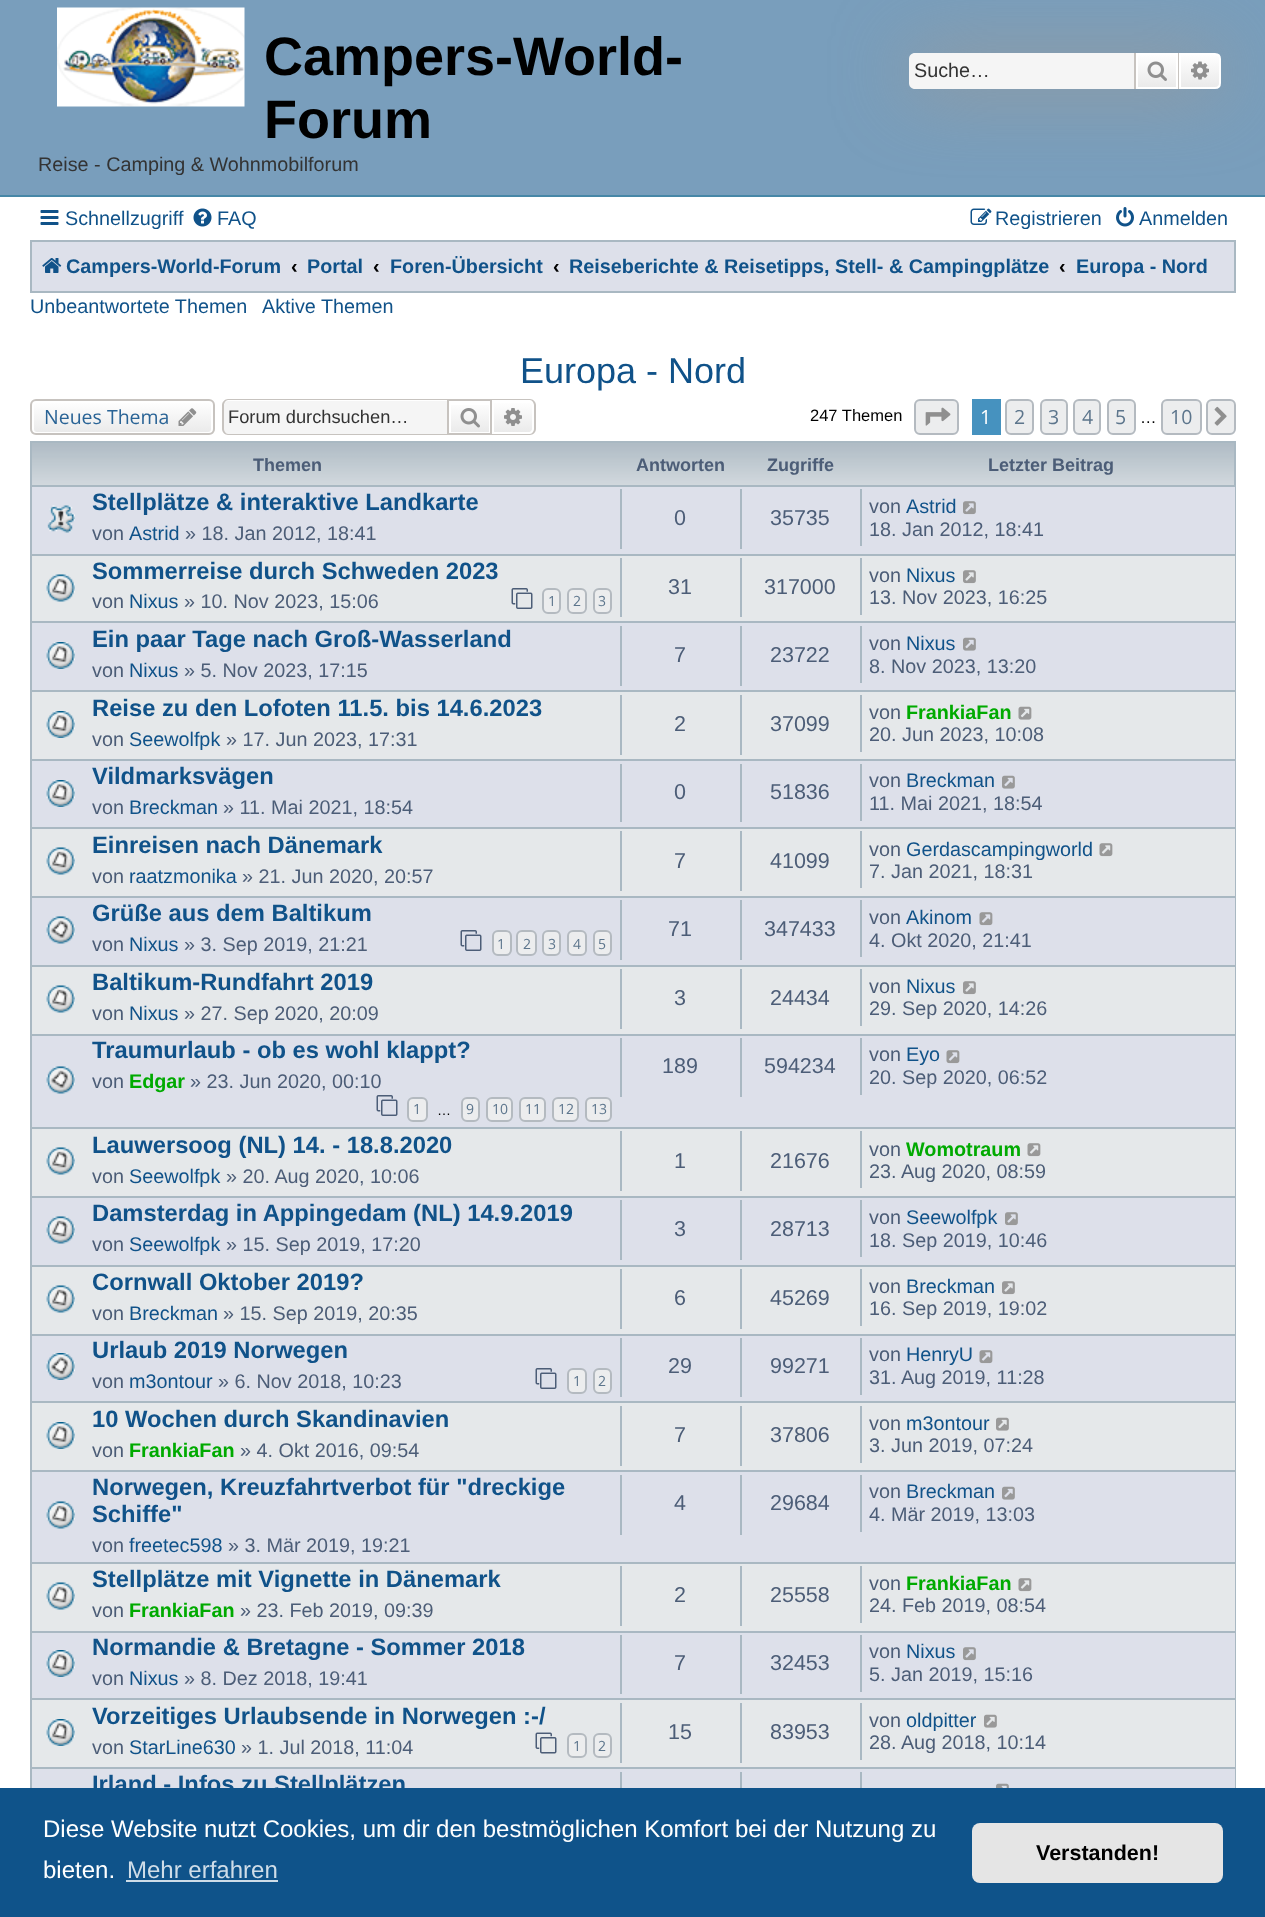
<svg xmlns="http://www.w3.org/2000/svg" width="1265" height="1917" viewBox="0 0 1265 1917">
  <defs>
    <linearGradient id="g1" gradientUnits="userSpaceOnUse" x1="1157" y1="53" x2="1157" y2="89"><stop offset="0" stop-color="rgb(255,255,255)"/><stop offset="1" stop-color="rgb(233,233,233)"/></linearGradient>
    <linearGradient id="g2" gradientUnits="userSpaceOnUse" x1="1200" y1="53" x2="1200" y2="89"><stop offset="0" stop-color="rgb(255,255,255)"/><stop offset="1" stop-color="rgb(233,233,233)"/></linearGradient>
    <clipPath id="clip1"><rect x="30" y="399" width="185" height="36" rx="6"/></clipPath>
    <linearGradient id="g3" gradientUnits="userSpaceOnUse" x1="122" y1="401" x2="122" y2="434"><stop offset="0" stop-color="rgb(255,255,255)"/><stop offset="1" stop-color="rgb(233,233,233)"/></linearGradient>
    <linearGradient id="g4" gradientUnits="userSpaceOnUse" x1="470" y1="401" x2="470" y2="434"><stop offset="0" stop-color="rgb(255,255,255)"/><stop offset="1" stop-color="rgb(233,233,233)"/></linearGradient>
    <linearGradient id="g5" gradientUnits="userSpaceOnUse" x1="513" y1="401" x2="513" y2="434"><stop offset="0" stop-color="rgb(255,255,255)"/><stop offset="1" stop-color="rgb(233,233,233)"/></linearGradient>
  </defs>
  <rect width="100%" height="100%" fill="rgb(121,158,188)"/>
  <rect x="0" y="195" width="1265" height="2" fill="rgb(71,135,167)"/>
  <image x="57" y="7" width="188" height="100" href="pic1.png"/>
  <g font-family="Liberation Sans" font-size="54" font-weight="bold" fill="rgb(0,0,0)">
    <text>
      <tspan x="264" y="75">Campers-World-</tspan>
      <tspan x="264" y="138">Forum</tspan>
    </text>
  </g>
  <text x="38" y="171" font-family="Liberation Sans" font-size="19.8" fill="rgb(51,51,51)">Reise - Camping &amp; Wohnmobilforum</text>
  <rect x="0" y="197" width="1265" height="1591" fill="rgb(255,255,255)"/>
  <rect x="909" y="53" width="312" height="36" rx="6" fill="rgb(153,153,153)" filter="blur(37.5px)"/>
  <path d="M915 53H1134V89H915C911.5 89 909 86.5 909 83V59C909 55.5 911.5 53 915 53Z" fill="rgb(245,245,245)"/>
  <text x="914" y="77" font-family="Liberation Sans" font-size="19.8" fill="rgb(51,51,51)">Suche…</text>
  <rect x="1138" y="55" width="38" height="32" fill="url(#g1)"/>
  <rect x="1137" y="54" width="40" height="34" fill="none" stroke="rgb(255,255,255)" stroke-width="2"/>
  <rect x="1178" y="53" width="1" height="36" fill="rgb(199,195,191)"/>
  <rect x="1134" y="53" width="2" height="36" fill="rgb(199,195,191)"/>
  <image x="1147" y="61" width="20" height="20" href="pic2.png"/>
  <path d="M1180 54H1215C1218 54 1220 56 1220 59V83C1220 86 1218 88 1215 88H1180Z" fill="url(#g2)" stroke="rgb(255,255,255)" stroke-width="2"/>
  <image x="1191" y="61" width="18" height="19" href="pic3.png"/>
  <image x="40" y="210" width="19" height="15" href="pic4.png"/>
  <text x="65" y="225" font-family="Liberation Sans" font-size="19.8" fill="rgb(16,82,137)">Schnellzugriff</text>
  <image x="193" y="208" width="19" height="19" href="pic5.png"/>
  <text x="217" y="225" font-family="Liberation Sans" font-size="19.8" fill="rgb(16,82,137)">FAQ</text>
  <image x="970" y="208" width="22" height="17" href="pic6.png"/>
  <text x="995" y="225" font-family="Liberation Sans" font-size="19.8" fill="rgb(16,82,137)">Registrieren</text>
  <image x="1116" y="207" width="18" height="20" href="pic7.png"/>
  <text x="1139" y="225" font-family="Liberation Sans" font-size="19.8" fill="rgb(16,82,137)">Anmelden</text>
  <rect x="31" y="241" width="1204" height="51" fill="rgb(221,224,234)" stroke="rgb(169,184,194)" stroke-width="2"/>
  <image x="42" y="258" width="20" height="15" href="pic8.png"/>
  <text x="66" y="273" font-family="Liberation Sans" font-size="19.8" font-weight="bold" fill="rgb(16,82,137)">Campers-World-Forum</text>
  <text x="291" y="273" font-family="Liberation Sans" font-size="19.8" font-weight="bold" fill="rgb(0,0,0)">‹</text>
  <text x="307" y="273" font-family="Liberation Sans" font-size="19.8" font-weight="bold" fill="rgb(16,82,137)">Portal</text>
  <text x="373" y="273" font-family="Liberation Sans" font-size="19.8" font-weight="bold" fill="rgb(0,0,0)">‹</text>
  <text x="390" y="273" font-family="Liberation Sans" font-size="19.8" font-weight="bold" fill="rgb(16,82,137)">Foren-Übersicht</text>
  <text x="553" y="273" font-family="Liberation Sans" font-size="19.8" font-weight="bold" fill="rgb(0,0,0)">‹</text>
  <text x="569" y="273" font-family="Liberation Sans" font-size="19.8" font-weight="bold" fill="rgb(16,82,137)">Reiseberichte &amp; Reisetipps, Stell- &amp; Campingplätze</text>
  <text x="1059" y="273" font-family="Liberation Sans" font-size="19.8" font-weight="bold" fill="rgb(0,0,0)">‹</text>
  <text x="1076" y="273" font-family="Liberation Sans" font-size="19.8" font-weight="bold" fill="rgb(16,82,137)">Europa - Nord</text>
  <g font-family="Liberation Sans" font-size="19.8" fill="rgb(16,82,137)">
    <text x="30" y="313">Unbeantwortete Themen</text>
    <text x="262" y="313">Aktive Themen</text>
  </g>
  <text x="520" y="383" font-family="Liberation Sans" font-size="36" fill="rgb(16,82,137)">Europa - Nord</text>
  <g clip-path="url(#clip1)">
    <rect x="30" y="401" width="185" height="33" fill="url(#g3)"/>
  </g>
  <rect x="33" y="402" width="179" height="31" rx="4" fill="none" stroke="rgb(255,255,255)" stroke-width="2"/>
  <rect x="31" y="400" width="183" height="34" rx="5" fill="none" stroke="rgb(199,195,191)" stroke-width="2"/>
  <text x="44" y="424" font-family="Open Sans" font-size="19.5" fill="rgb(42,100,150)">Neues Thema</text>
  <image x="178" y="408" width="19" height="18" href="pic9.png"/>
  <path d="M229 401H447V434H229C226 434 224 432 224 429V406C224 403 226 401 229 401Z" fill="rgb(245,245,245)"/>
  <path d="M228 399H447V435H228C225 435 222 432 222 429V405C222 402 225 399 228 399ZM228 400H447V434H228C226 434 224 431 224 429V405C224 403 226 400 228 400Z" fill="rgb(199,195,191)" fill-rule="evenodd"/>
  <text x="228" y="423" font-family="Liberation Sans" font-size="18.25" fill="rgb(51,51,51)">Forum durchsuchen…</text>
  <rect x="451" y="405" width="38" height="27" fill="url(#g4)"/>
  <rect x="448" y="400" width="43" height="34" fill="none" stroke="rgb(199,195,191)" stroke-width="2"/>
  <image x="460" y="408" width="20" height="20" href="pic10.png"/>
  <path d="M493 402H529C531 402 533 404 533 406V429C533 431 531 433 529 433H493Z" fill="url(#g5)" stroke="rgb(255,255,255)" stroke-width="2"/>
  <path d="M492 399H530C533 399 536 402 536 405V429C536 432 533 435 530 435H492ZM492 400H530C532 400 534 403 534 405V429C534 431 532 434 530 434H492Z" fill="rgb(199,195,191)" fill-rule="evenodd"/>
  <image x="504" y="408" width="18" height="18" href="pic11.png"/>
  <text x="810" y="421" font-family="Liberation Sans" font-size="16.5" fill="rgb(0,0,0)">247 Themen</text>
  <rect x="915" y="400" width="43" height="34" rx="5" fill="rgb(236,237,238)" stroke="rgb(180,186,192)" stroke-width="2"/>
  <image x="925" y="407" width="26" height="19" href="pic12.png"/>
  <rect x="972" y="399" width="29" height="36" fill="rgb(70,146,191)"/>
  <text x="980" y="424" font-family="Open Sans" font-size="19.5" fill="rgb(255,255,255)">1</text>
  <rect x="1006" y="400" width="27" height="34" rx="5" fill="rgb(236,237,238)" stroke="rgb(180,186,192)" stroke-width="2"/>
  <text x="1014" y="424" font-family="Open Sans" font-size="19.5" fill="rgb(92,117,140)">2</text>
  <rect x="1041" y="400" width="26" height="34" rx="5" fill="rgb(236,237,238)" stroke="rgb(180,186,192)" stroke-width="2"/>
  <text x="1048" y="424" font-family="Open Sans" font-size="19.5" fill="rgb(92,117,140)">3</text>
  <rect x="1074" y="400" width="26" height="34" rx="5" fill="rgb(236,237,238)" stroke="rgb(180,186,192)" stroke-width="2"/>
  <text x="1082" y="424" font-family="Open Sans" font-size="19.5" fill="rgb(92,117,140)">4</text>
  <rect x="1108" y="400" width="27" height="34" rx="5" fill="rgb(236,237,238)" stroke="rgb(180,186,192)" stroke-width="2"/>
  <text x="1115" y="424" font-family="Open Sans" font-size="19.5" fill="rgb(92,117,140)">5</text>
  <text x="1140" y="423" font-family="Liberation Sans" font-size="16.5" fill="rgb(0,0,0)">…</text>
  <rect x="1162" y="400" width="39" height="34" rx="5" fill="rgb(236,237,238)" stroke="rgb(180,186,192)" stroke-width="2"/>
  <text x="1170" y="424" font-family="Open Sans" font-size="19.5" fill="rgb(92,117,140)">10</text>
  <rect x="1207" y="400" width="28" height="34" rx="5" fill="rgb(236,237,238)" stroke="rgb(180,186,192)" stroke-width="2"/>
  <image x="1214" y="406" width="13" height="20" href="pic13.png"/>
  <image x="32" y="443" width="1202" height="42" href="pic14.png"/>
  <rect x="31" y="442" width="1204" height="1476" fill="none" stroke="rgb(169,184,194)" stroke-width="2"/>
  <g font-family="Liberation Sans" font-size="18" font-weight="bold" fill="rgb(76,93,119)">
    <text x="253" y="471">Themen</text>
    <text x="636" y="471">Antworten</text>
    <text x="767" y="471">Zugriffe</text>
    <text x="988" y="471">Letzter Beitrag</text>
  </g>
  <rect x="32" y="487" width="1203" height="67" fill="rgb(221,224,234)"/>
  <rect x="32" y="485" width="1203" height="2" fill="rgb(169,184,194)"/>
  <image x="47" y="505" width="28" height="28" href="pic15.png"/>
  <text x="92" y="510" font-family="Liberation Sans" font-size="23.75" font-weight="bold" fill="rgb(16,82,137)">Stellplätze &amp; interaktive Landkarte</text>
  <text x="92" y="540" font-family="Liberation Sans" font-size="19.8" fill="rgb(76,93,119)">von</text>
  <text x="129" y="540" font-family="Liberation Sans" font-size="19.8" fill="rgb(16,82,137)">Astrid</text>
  <text x="185" y="540" font-family="Liberation Sans" font-size="19.8" fill="rgb(76,93,119)">» 18. Jan 2012, 18:41</text>
  <rect x="620" y="489" width="2" height="60" fill="rgb(169,184,194)"/>
  <text x="674" y="525" font-family="Liberation Sans" font-size="21.5" fill="rgb(76,93,119)">0</text>
  <rect x="740" y="489" width="2" height="60" fill="rgb(169,184,194)"/>
  <text x="770" y="525" font-family="Liberation Sans" font-size="21.5" fill="rgb(76,93,119)">35735</text>
  <rect x="860" y="489" width="2" height="57" fill="rgb(169,184,194)"/>
  <text x="869" y="513" font-family="Liberation Sans" font-size="19.8" fill="rgb(76,93,119)">von</text>
  <text x="906" y="513" font-family="Liberation Sans" font-size="19.8" fill="rgb(16,82,137)">Astrid</text>
  <image x="963" y="501" width="13" height="14" href="pic16.png"/>
  <text x="869" y="536" font-family="Liberation Sans" font-size="19.8" fill="rgb(76,93,119)">18. Jan 2012, 18:41</text>
  <rect x="32" y="556" width="1203" height="65" fill="rgb(229,232,234)"/>
  <rect x="32" y="554" width="1203" height="2" fill="rgb(169,184,194)"/>
  <image x="46" y="574" width="29" height="28" href="pic17.png"/>
  <text x="92" y="579" font-family="Liberation Sans" font-size="23.75" font-weight="bold" fill="rgb(16,82,137)">Sommerreise durch Schweden 2023</text>
  <text x="92" y="608" font-family="Liberation Sans" font-size="19.8" fill="rgb(76,93,119)">von</text>
  <text x="129" y="608" font-family="Liberation Sans" font-size="19.8" fill="rgb(16,82,137)">Nixus</text>
  <text x="184" y="608" font-family="Liberation Sans" font-size="19.8" fill="rgb(76,93,119)">» 10. Nov 2023, 15:06</text>
  <image x="511" y="588" width="22" height="21" href="pic18.png"/>
  <rect x="543" y="589" width="17" height="24" rx="5" fill="rgb(236,237,238)" stroke="rgb(180,186,192)" stroke-width="2"/>
  <text x="548" y="606" font-family="Open Sans" font-size="14" fill="rgb(92,117,140)">1</text>
  <rect x="568" y="589" width="18" height="24" rx="5" fill="rgb(236,237,238)" stroke="rgb(180,186,192)" stroke-width="2"/>
  <text x="573" y="606" font-family="Open Sans" font-size="14" fill="rgb(92,117,140)">2</text>
  <rect x="594" y="589" width="17" height="24" rx="5" fill="rgb(236,237,238)" stroke="rgb(180,186,192)" stroke-width="2"/>
  <text x="598" y="606" font-family="Open Sans" font-size="14" fill="rgb(92,117,140)">3</text>
  <rect x="620" y="558" width="2" height="59" fill="rgb(169,184,194)"/>
  <text x="668" y="594" font-family="Liberation Sans" font-size="21.5" fill="rgb(76,93,119)">31</text>
  <rect x="740" y="558" width="2" height="59" fill="rgb(169,184,194)"/>
  <text x="764" y="594" font-family="Liberation Sans" font-size="21.5" fill="rgb(76,93,119)">317000</text>
  <rect x="860" y="558" width="2" height="57" fill="rgb(169,184,194)"/>
  <text x="869" y="582" font-family="Liberation Sans" font-size="19.8" fill="rgb(76,93,119)">von</text>
  <text x="906" y="582" font-family="Liberation Sans" font-size="19.8" fill="rgb(16,82,137)">Nixus</text>
  <image x="963" y="570" width="13" height="14" href="pic19.png"/>
  <text x="869" y="604" font-family="Liberation Sans" font-size="19.8" fill="rgb(76,93,119)">13. Nov 2023, 16:25</text>
  <rect x="32" y="623" width="1203" height="67" fill="rgb(221,224,234)"/>
  <rect x="32" y="621" width="1203" height="2" fill="rgb(169,184,194)"/>
  <image x="46" y="642" width="29" height="27" href="pic20.png"/>
  <text x="92" y="647" font-family="Liberation Sans" font-size="23.75" font-weight="bold" fill="rgb(16,82,137)">Ein paar Tage nach Groß-Wasserland</text>
  <text x="92" y="677" font-family="Liberation Sans" font-size="19.8" fill="rgb(76,93,119)">von</text>
  <text x="129" y="677" font-family="Liberation Sans" font-size="19.8" fill="rgb(16,82,137)">Nixus</text>
  <text x="184" y="677" font-family="Liberation Sans" font-size="19.8" fill="rgb(76,93,119)">» 5. Nov 2023, 17:15</text>
  <rect x="620" y="626" width="2" height="60" fill="rgb(169,184,194)"/>
  <text x="674" y="662" font-family="Liberation Sans" font-size="21.5" fill="rgb(76,93,119)">7</text>
  <rect x="740" y="626" width="2" height="60" fill="rgb(169,184,194)"/>
  <text x="770" y="662" font-family="Liberation Sans" font-size="21.5" fill="rgb(76,93,119)">23722</text>
  <rect x="860" y="626" width="2" height="57" fill="rgb(169,184,194)"/>
  <text x="869" y="650" font-family="Liberation Sans" font-size="19.8" fill="rgb(76,93,119)">von</text>
  <text x="906" y="650" font-family="Liberation Sans" font-size="19.8" fill="rgb(16,82,137)">Nixus</text>
  <image x="963" y="637" width="13" height="14" href="pic21.png"/>
  <text x="869" y="673" font-family="Liberation Sans" font-size="19.8" fill="rgb(76,93,119)">8. Nov 2023, 13:20</text>
  <rect x="32" y="692" width="1203" height="67" fill="rgb(229,232,234)"/>
  <rect x="32" y="690" width="1203" height="2" fill="rgb(169,184,194)"/>
  <image x="46" y="711" width="29" height="27" href="pic22.png"/>
  <text x="92" y="716" font-family="Liberation Sans" font-size="23.75" font-weight="bold" fill="rgb(16,82,137)">Reise zu den Lofoten 11.5. bis 14.6.2023</text>
  <text x="92" y="746" font-family="Liberation Sans" font-size="19.8" fill="rgb(76,93,119)">von</text>
  <text x="129" y="746" font-family="Liberation Sans" font-size="19.8" fill="rgb(16,82,137)">Seewolfpk</text>
  <text x="226" y="746" font-family="Liberation Sans" font-size="19.8" fill="rgb(76,93,119)">» 17. Jun 2023, 17:31</text>
  <rect x="620" y="695" width="2" height="60" fill="rgb(169,184,194)"/>
  <text x="674" y="731" font-family="Liberation Sans" font-size="21.5" fill="rgb(76,93,119)">2</text>
  <rect x="740" y="695" width="2" height="60" fill="rgb(169,184,194)"/>
  <text x="770" y="731" font-family="Liberation Sans" font-size="21.5" fill="rgb(76,93,119)">37099</text>
  <rect x="860" y="695" width="2" height="57" fill="rgb(169,184,194)"/>
  <text x="869" y="719" font-family="Liberation Sans" font-size="19.8" fill="rgb(76,93,119)">von</text>
  <text x="906" y="719" font-family="Liberation Sans" font-size="19.8" font-weight="bold" fill="rgb(0,170,0)">FrankiaFan</text>
  <image x="1018" y="706" width="14" height="14" href="pic23.png"/>
  <text x="869" y="741" font-family="Liberation Sans" font-size="19.8" fill="rgb(76,93,119)">20. Jun 2023, 10:08</text>
  <rect x="32" y="761" width="1203" height="66" fill="rgb(221,224,234)"/>
  <rect x="32" y="759" width="1203" height="2" fill="rgb(169,184,194)"/>
  <image x="46" y="780" width="29" height="27" href="pic20.png"/>
  <text x="92" y="784" font-family="Liberation Sans" font-size="23.75" font-weight="bold" fill="rgb(16,82,137)">Vildmarksvägen</text>
  <text x="92" y="814" font-family="Liberation Sans" font-size="19.8" fill="rgb(76,93,119)">von</text>
  <text x="129" y="814" font-family="Liberation Sans" font-size="19.8" fill="rgb(16,82,137)">Breckman</text>
  <text x="223" y="814" font-family="Liberation Sans" font-size="19.8" fill="rgb(76,93,119)">» 11. Mai 2021, 18:54</text>
  <rect x="620" y="764" width="2" height="58" fill="rgb(169,184,194)"/>
  <text x="674" y="799" font-family="Liberation Sans" font-size="21.5" fill="rgb(76,93,119)">0</text>
  <rect x="740" y="764" width="2" height="58" fill="rgb(169,184,194)"/>
  <text x="770" y="799" font-family="Liberation Sans" font-size="21.5" fill="rgb(76,93,119)">51836</text>
  <rect x="860" y="764" width="2" height="57" fill="rgb(169,184,194)"/>
  <text x="869" y="787" font-family="Liberation Sans" font-size="19.8" fill="rgb(76,93,119)">von</text>
  <text x="906" y="787" font-family="Liberation Sans" font-size="19.8" fill="rgb(16,82,137)">Breckman</text>
  <image x="1002" y="775" width="13" height="14" href="pic21.png"/>
  <text x="869" y="810" font-family="Liberation Sans" font-size="19.8" fill="rgb(76,93,119)">11. Mai 2021, 18:54</text>
  <rect x="32" y="829" width="1203" height="67" fill="rgb(229,232,234)"/>
  <rect x="32" y="827" width="1203" height="2" fill="rgb(169,184,194)"/>
  <image x="46" y="847" width="29" height="28" href="pic24.png"/>
  <text x="92" y="853" font-family="Liberation Sans" font-size="23.75" font-weight="bold" fill="rgb(16,82,137)">Einreisen nach Dänemark</text>
  <text x="92" y="883" font-family="Liberation Sans" font-size="19.8" fill="rgb(76,93,119)">von</text>
  <text x="129" y="883" font-family="Liberation Sans" font-size="19.8" fill="rgb(16,82,137)">raatzmonika</text>
  <text x="242" y="883" font-family="Liberation Sans" font-size="19.8" fill="rgb(76,93,119)">» 21. Jun 2020, 20:57</text>
  <rect x="620" y="831" width="2" height="60" fill="rgb(169,184,194)"/>
  <text x="674" y="868" font-family="Liberation Sans" font-size="21.5" fill="rgb(76,93,119)">7</text>
  <rect x="740" y="831" width="2" height="60" fill="rgb(169,184,194)"/>
  <text x="770" y="868" font-family="Liberation Sans" font-size="21.5" fill="rgb(76,93,119)">41099</text>
  <rect x="860" y="831" width="2" height="57" fill="rgb(169,184,194)"/>
  <text x="869" y="856" font-family="Liberation Sans" font-size="19.8" fill="rgb(76,93,119)">von</text>
  <text x="906" y="856" font-family="Liberation Sans" font-size="19.8" fill="rgb(16,82,137)">Gerdascampingworld</text>
  <image x="1099" y="843" width="14" height="14" href="pic25.png"/>
  <text x="869" y="878" font-family="Liberation Sans" font-size="19.8" fill="rgb(76,93,119)">7. Jan 2021, 18:31</text>
  <rect x="32" y="898" width="1203" height="67" fill="rgb(221,224,234)"/>
  <rect x="32" y="896" width="1203" height="2" fill="rgb(169,184,194)"/>
  <image x="46" y="916" width="29" height="28" href="pic26.png"/>
  <text x="92" y="921" font-family="Liberation Sans" font-size="23.75" font-weight="bold" fill="rgb(16,82,137)">Grüße aus dem Baltikum</text>
  <text x="92" y="951" font-family="Liberation Sans" font-size="19.8" fill="rgb(76,93,119)">von</text>
  <text x="129" y="951" font-family="Liberation Sans" font-size="19.8" fill="rgb(16,82,137)">Nixus</text>
  <text x="184" y="951" font-family="Liberation Sans" font-size="19.8" fill="rgb(76,93,119)">» 3. Sep 2019, 21:21</text>
  <image x="460" y="930" width="22" height="21" href="pic27.png"/>
  <rect x="493" y="931" width="18" height="24" rx="5" fill="rgb(236,237,238)" stroke="rgb(180,186,192)" stroke-width="2"/>
  <text x="497" y="949" font-family="Open Sans" font-size="14" fill="rgb(92,117,140)">1</text>
  <rect x="517" y="931" width="19" height="24" rx="5" fill="rgb(236,237,238)" stroke="rgb(180,186,192)" stroke-width="2"/>
  <text x="523" y="949" font-family="Open Sans" font-size="14" fill="rgb(92,117,140)">2</text>
  <rect x="543" y="931" width="17" height="24" rx="5" fill="rgb(236,237,238)" stroke="rgb(180,186,192)" stroke-width="2"/>
  <text x="548" y="949" font-family="Open Sans" font-size="14" fill="rgb(92,117,140)">3</text>
  <rect x="568" y="931" width="18" height="24" rx="5" fill="rgb(236,237,238)" stroke="rgb(180,186,192)" stroke-width="2"/>
  <text x="573" y="949" font-family="Open Sans" font-size="14" fill="rgb(92,117,140)">4</text>
  <rect x="594" y="931" width="17" height="24" rx="5" fill="rgb(236,237,238)" stroke="rgb(180,186,192)" stroke-width="2"/>
  <text x="598" y="949" font-family="Open Sans" font-size="14" fill="rgb(92,117,140)">5</text>
  <rect x="620" y="900" width="2" height="60" fill="rgb(169,184,194)"/>
  <text x="668" y="936" font-family="Liberation Sans" font-size="21.5" fill="rgb(76,93,119)">71</text>
  <rect x="740" y="900" width="2" height="60" fill="rgb(169,184,194)"/>
  <text x="764" y="936" font-family="Liberation Sans" font-size="21.5" fill="rgb(76,93,119)">347433</text>
  <rect x="860" y="900" width="2" height="57" fill="rgb(169,184,194)"/>
  <text x="869" y="924" font-family="Liberation Sans" font-size="19.8" fill="rgb(76,93,119)">von</text>
  <text x="906" y="924" font-family="Liberation Sans" font-size="19.8" fill="rgb(16,82,137)">Akinom</text>
  <image x="979" y="912" width="14" height="14" href="pic28.png"/>
  <text x="869" y="947" font-family="Liberation Sans" font-size="19.8" fill="rgb(76,93,119)">4. Okt 2020, 21:41</text>
  <rect x="32" y="967" width="1203" height="67" fill="rgb(229,232,234)"/>
  <rect x="32" y="965" width="1203" height="2" fill="rgb(169,184,194)"/>
  <image x="46" y="985" width="29" height="28" href="pic24.png"/>
  <text x="92" y="990" font-family="Liberation Sans" font-size="23.75" font-weight="bold" fill="rgb(16,82,137)">Baltikum-Rundfahrt 2019</text>
  <text x="92" y="1020" font-family="Liberation Sans" font-size="19.8" fill="rgb(76,93,119)">von</text>
  <text x="129" y="1020" font-family="Liberation Sans" font-size="19.8" fill="rgb(16,82,137)">Nixus</text>
  <text x="184" y="1020" font-family="Liberation Sans" font-size="19.8" fill="rgb(76,93,119)">» 27. Sep 2020, 20:09</text>
  <rect x="620" y="969" width="2" height="60" fill="rgb(169,184,194)"/>
  <text x="674" y="1005" font-family="Liberation Sans" font-size="21.5" fill="rgb(76,93,119)">3</text>
  <rect x="740" y="969" width="2" height="60" fill="rgb(169,184,194)"/>
  <text x="770" y="1005" font-family="Liberation Sans" font-size="21.5" fill="rgb(76,93,119)">24434</text>
  <rect x="860" y="969" width="2" height="57" fill="rgb(169,184,194)"/>
  <text x="869" y="993" font-family="Liberation Sans" font-size="19.8" fill="rgb(76,93,119)">von</text>
  <text x="906" y="993" font-family="Liberation Sans" font-size="19.8" fill="rgb(16,82,137)">Nixus</text>
  <image x="963" y="981" width="13" height="14" href="pic19.png"/>
  <text x="869" y="1015" font-family="Liberation Sans" font-size="19.8" fill="rgb(76,93,119)">29. Sep 2020, 14:26</text>
  <rect x="32" y="1036" width="1203" height="91" fill="rgb(221,224,234)"/>
  <rect x="32" y="1034" width="1203" height="2" fill="rgb(169,184,194)"/>
  <image x="46" y="1066" width="29" height="28" href="pic26.png"/>
  <text x="92" y="1058" font-family="Liberation Sans" font-size="23.75" font-weight="bold" fill="rgb(16,82,137)">Traumurlaub - ob es wohl klappt?</text>
  <text x="92" y="1088" font-family="Liberation Sans" font-size="19.8" fill="rgb(76,93,119)">von</text>
  <text x="129" y="1088" font-family="Liberation Sans" font-size="19.8" font-weight="bold" fill="rgb(0,170,0)">Edgar</text>
  <text x="190" y="1088" font-family="Liberation Sans" font-size="19.8" fill="rgb(76,93,119)">» 23. Jun 2020, 00:10</text>
  <image x="376" y="1095" width="22" height="21" href="pic27.png"/>
  <rect x="408" y="1098" width="19" height="23" rx="5" fill="rgb(236,237,238)" stroke="rgb(180,186,192)" stroke-width="2"/>
  <text x="413" y="1114" font-family="Open Sans" font-size="14" fill="rgb(92,117,140)">1</text>
  <text x="437" y="1115" font-family="Liberation Sans" font-size="14" fill="rgb(0,0,0)">…</text>
  <rect x="462" y="1098" width="17" height="23" rx="5" fill="rgb(236,237,238)" stroke="rgb(180,186,192)" stroke-width="2"/>
  <text x="466" y="1114" font-family="Open Sans" font-size="14" fill="rgb(92,117,140)">9</text>
  <rect x="487" y="1098" width="25" height="23" rx="5" fill="rgb(236,237,238)" stroke="rgb(180,186,192)" stroke-width="2"/>
  <text x="492" y="1114" font-family="Open Sans" font-size="14" fill="rgb(92,117,140)">10</text>
  <rect x="520" y="1098" width="25" height="23" rx="5" fill="rgb(236,237,238)" stroke="rgb(180,186,192)" stroke-width="2"/>
  <text x="525" y="1114" font-family="Open Sans" font-size="14" fill="rgb(92,117,140)">11</text>
  <rect x="553" y="1098" width="25" height="23" rx="5" fill="rgb(236,237,238)" stroke="rgb(180,186,192)" stroke-width="2"/>
  <text x="558" y="1114" font-family="Open Sans" font-size="14" fill="rgb(92,117,140)">12</text>
  <rect x="586" y="1098" width="25" height="23" rx="5" fill="rgb(236,237,238)" stroke="rgb(180,186,192)" stroke-width="2"/>
  <text x="591" y="1114" font-family="Open Sans" font-size="14" fill="rgb(92,117,140)">13</text>
  <rect x="620" y="1038" width="2" height="59" fill="rgb(169,184,194)"/>
  <text x="662" y="1073" font-family="Liberation Sans" font-size="21.5" fill="rgb(76,93,119)">189</text>
  <rect x="740" y="1038" width="2" height="59" fill="rgb(169,184,194)"/>
  <text x="764" y="1073" font-family="Liberation Sans" font-size="21.5" fill="rgb(76,93,119)">594234</text>
  <rect x="860" y="1038" width="2" height="57" fill="rgb(169,184,194)"/>
  <text x="869" y="1061" font-family="Liberation Sans" font-size="19.8" fill="rgb(76,93,119)">von</text>
  <text x="906" y="1061" font-family="Liberation Sans" font-size="19.8" fill="rgb(16,82,137)">Eyo</text>
  <image x="946" y="1050" width="14" height="14" href="pic28.png"/>
  <text x="869" y="1084" font-family="Liberation Sans" font-size="19.8" fill="rgb(76,93,119)">20. Sep 2020, 06:52</text>
  <rect x="32" y="1129" width="1203" height="67" fill="rgb(229,232,234)"/>
  <rect x="32" y="1127" width="1203" height="2" fill="rgb(169,184,194)"/>
  <image x="46" y="1147" width="29" height="28" href="pic24.png"/>
  <text x="92" y="1153" font-family="Liberation Sans" font-size="23.75" font-weight="bold" fill="rgb(16,82,137)">Lauwersoog (NL) 14. - 18.8.2020</text>
  <text x="92" y="1183" font-family="Liberation Sans" font-size="19.8" fill="rgb(76,93,119)">von</text>
  <text x="129" y="1183" font-family="Liberation Sans" font-size="19.8" fill="rgb(16,82,137)">Seewolfpk</text>
  <text x="226" y="1183" font-family="Liberation Sans" font-size="19.8" fill="rgb(76,93,119)">» 20. Aug 2020, 10:06</text>
  <rect x="620" y="1131" width="2" height="60" fill="rgb(169,184,194)"/>
  <text x="674" y="1168" font-family="Liberation Sans" font-size="21.5" fill="rgb(76,93,119)">1</text>
  <rect x="740" y="1131" width="2" height="60" fill="rgb(169,184,194)"/>
  <text x="770" y="1168" font-family="Liberation Sans" font-size="21.5" fill="rgb(76,93,119)">21676</text>
  <rect x="860" y="1131" width="2" height="57" fill="rgb(169,184,194)"/>
  <text x="869" y="1156" font-family="Liberation Sans" font-size="19.8" fill="rgb(76,93,119)">von</text>
  <text x="906" y="1156" font-family="Liberation Sans" font-size="19.8" font-weight="bold" fill="rgb(0,170,0)">Womotraum</text>
  <image x="1027" y="1143" width="14" height="14" href="pic25.png"/>
  <text x="869" y="1178" font-family="Liberation Sans" font-size="19.8" fill="rgb(76,93,119)">23. Aug 2020, 08:59</text>
  <rect x="32" y="1198" width="1203" height="67" fill="rgb(221,224,234)"/>
  <rect x="32" y="1196" width="1203" height="2" fill="rgb(169,184,194)"/>
  <image x="46" y="1216" width="29" height="28" href="pic29.png"/>
  <text x="92" y="1221" font-family="Liberation Sans" font-size="23.75" font-weight="bold" fill="rgb(16,82,137)">Damsterdag in Appingedam (NL) 14.9.2019</text>
  <text x="92" y="1251" font-family="Liberation Sans" font-size="19.8" fill="rgb(76,93,119)">von</text>
  <text x="129" y="1251" font-family="Liberation Sans" font-size="19.8" fill="rgb(16,82,137)">Seewolfpk</text>
  <text x="226" y="1251" font-family="Liberation Sans" font-size="19.8" fill="rgb(76,93,119)">» 15. Sep 2019, 17:20</text>
  <rect x="620" y="1200" width="2" height="60" fill="rgb(169,184,194)"/>
  <text x="674" y="1236" font-family="Liberation Sans" font-size="21.5" fill="rgb(76,93,119)">3</text>
  <rect x="740" y="1200" width="2" height="60" fill="rgb(169,184,194)"/>
  <text x="770" y="1236" font-family="Liberation Sans" font-size="21.5" fill="rgb(76,93,119)">28713</text>
  <rect x="860" y="1200" width="2" height="57" fill="rgb(169,184,194)"/>
  <text x="869" y="1224" font-family="Liberation Sans" font-size="19.8" fill="rgb(76,93,119)">von</text>
  <text x="906" y="1224" font-family="Liberation Sans" font-size="19.8" fill="rgb(16,82,137)">Seewolfpk</text>
  <image x="1005" y="1212" width="13" height="14" href="pic16.png"/>
  <text x="869" y="1247" font-family="Liberation Sans" font-size="19.8" fill="rgb(76,93,119)">18. Sep 2019, 10:46</text>
  <rect x="32" y="1267" width="1203" height="67" fill="rgb(229,232,234)"/>
  <rect x="32" y="1265" width="1203" height="2" fill="rgb(169,184,194)"/>
  <image x="46" y="1285" width="29" height="28" href="pic24.png"/>
  <text x="92" y="1290" font-family="Liberation Sans" font-size="23.75" font-weight="bold" fill="rgb(16,82,137)">Cornwall Oktober 2019?</text>
  <text x="92" y="1320" font-family="Liberation Sans" font-size="19.8" fill="rgb(76,93,119)">von</text>
  <text x="129" y="1320" font-family="Liberation Sans" font-size="19.8" fill="rgb(16,82,137)">Breckman</text>
  <text x="223" y="1320" font-family="Liberation Sans" font-size="19.8" fill="rgb(76,93,119)">» 15. Sep 2019, 20:35</text>
  <rect x="620" y="1269" width="2" height="60" fill="rgb(169,184,194)"/>
  <text x="674" y="1305" font-family="Liberation Sans" font-size="21.5" fill="rgb(76,93,119)">6</text>
  <rect x="740" y="1269" width="2" height="60" fill="rgb(169,184,194)"/>
  <text x="770" y="1305" font-family="Liberation Sans" font-size="21.5" fill="rgb(76,93,119)">45269</text>
  <rect x="860" y="1269" width="2" height="57" fill="rgb(169,184,194)"/>
  <text x="869" y="1293" font-family="Liberation Sans" font-size="19.8" fill="rgb(76,93,119)">von</text>
  <text x="906" y="1293" font-family="Liberation Sans" font-size="19.8" fill="rgb(16,82,137)">Breckman</text>
  <image x="1002" y="1281" width="13" height="14" href="pic19.png"/>
  <text x="869" y="1315" font-family="Liberation Sans" font-size="19.8" fill="rgb(76,93,119)">16. Sep 2019, 19:02</text>
  <rect x="32" y="1336" width="1203" height="65" fill="rgb(221,224,234)"/>
  <rect x="32" y="1334" width="1203" height="2" fill="rgb(169,184,194)"/>
  <image x="46" y="1353" width="29" height="27" href="pic30.png"/>
  <text x="92" y="1358" font-family="Liberation Sans" font-size="23.75" font-weight="bold" fill="rgb(16,82,137)">Urlaub 2019 Norwegen</text>
  <text x="92" y="1388" font-family="Liberation Sans" font-size="19.8" fill="rgb(76,93,119)">von</text>
  <text x="129" y="1388" font-family="Liberation Sans" font-size="19.8" fill="rgb(16,82,137)">m3ontour</text>
  <text x="218" y="1388" font-family="Liberation Sans" font-size="19.8" fill="rgb(76,93,119)">» 6. Nov 2018, 10:23</text>
  <image x="535" y="1368" width="22" height="21" href="pic27.png"/>
  <rect x="568" y="1369" width="18" height="24" rx="5" fill="rgb(236,237,238)" stroke="rgb(180,186,192)" stroke-width="2"/>
  <text x="573" y="1386" font-family="Open Sans" font-size="14" fill="rgb(92,117,140)">1</text>
  <rect x="594" y="1369" width="17" height="24" rx="5" fill="rgb(236,237,238)" stroke="rgb(180,186,192)" stroke-width="2"/>
  <text x="598" y="1386" font-family="Open Sans" font-size="14" fill="rgb(92,117,140)">2</text>
  <rect x="620" y="1338" width="2" height="59" fill="rgb(169,184,194)"/>
  <text x="668" y="1373" font-family="Liberation Sans" font-size="21.5" fill="rgb(76,93,119)">29</text>
  <rect x="740" y="1338" width="2" height="59" fill="rgb(169,184,194)"/>
  <text x="770" y="1373" font-family="Liberation Sans" font-size="21.5" fill="rgb(76,93,119)">99271</text>
  <rect x="860" y="1338" width="2" height="57" fill="rgb(169,184,194)"/>
  <text x="869" y="1361" font-family="Liberation Sans" font-size="19.8" fill="rgb(76,93,119)">von</text>
  <text x="906" y="1361" font-family="Liberation Sans" font-size="19.8" fill="rgb(16,82,137)">HenryU</text>
  <image x="979" y="1350" width="14" height="14" href="pic28.png"/>
  <text x="869" y="1384" font-family="Liberation Sans" font-size="19.8" fill="rgb(76,93,119)">31. Aug 2019, 11:28</text>
  <rect x="32" y="1403" width="1203" height="67" fill="rgb(229,232,234)"/>
  <rect x="32" y="1401" width="1203" height="2" fill="rgb(169,184,194)"/>
  <image x="46" y="1422" width="29" height="27" href="pic22.png"/>
  <text x="92" y="1427" font-family="Liberation Sans" font-size="23.75" font-weight="bold" fill="rgb(16,82,137)">10 Wochen durch Skandinavien</text>
  <text x="92" y="1457" font-family="Liberation Sans" font-size="19.8" fill="rgb(76,93,119)">von</text>
  <text x="129" y="1457" font-family="Liberation Sans" font-size="19.8" font-weight="bold" fill="rgb(0,170,0)">FrankiaFan</text>
  <text x="240" y="1457" font-family="Liberation Sans" font-size="19.8" fill="rgb(76,93,119)">» 4. Okt 2016, 09:54</text>
  <rect x="620" y="1406" width="2" height="60" fill="rgb(169,184,194)"/>
  <text x="674" y="1442" font-family="Liberation Sans" font-size="21.5" fill="rgb(76,93,119)">7</text>
  <rect x="740" y="1406" width="2" height="60" fill="rgb(169,184,194)"/>
  <text x="770" y="1442" font-family="Liberation Sans" font-size="21.5" fill="rgb(76,93,119)">37806</text>
  <rect x="860" y="1406" width="2" height="57" fill="rgb(169,184,194)"/>
  <text x="869" y="1430" font-family="Liberation Sans" font-size="19.8" fill="rgb(76,93,119)">von</text>
  <text x="906" y="1430" font-family="Liberation Sans" font-size="19.8" fill="rgb(16,82,137)">m3ontour</text>
  <image x="996" y="1417" width="13" height="14" href="pic31.png"/>
  <text x="869" y="1452" font-family="Liberation Sans" font-size="19.8" fill="rgb(76,93,119)">3. Jun 2019, 07:24</text>
  <rect x="32" y="1472" width="1203" height="90" fill="rgb(221,224,234)"/>
  <rect x="32" y="1470" width="1203" height="2" fill="rgb(169,184,194)"/>
  <image x="46" y="1501" width="29" height="28" href="pic29.png"/>
  <g font-family="Liberation Sans" font-size="23.75" font-weight="bold" fill="rgb(16,82,137)">
    <text>
      <tspan x="92" y="1495">Norwegen, Kreuzfahrtverbot für "dreckige</tspan>
      <tspan x="92" y="1522">Schiffe"</tspan>
    </text>
  </g>
  <text x="92" y="1552" font-family="Liberation Sans" font-size="19.8" fill="rgb(76,93,119)">von</text>
  <text x="129" y="1552" font-family="Liberation Sans" font-size="19.8" fill="rgb(16,82,137)">freetec598</text>
  <text x="228" y="1552" font-family="Liberation Sans" font-size="19.8" fill="rgb(76,93,119)">» 3. Mär 2019, 19:21</text>
  <rect x="620" y="1475" width="2" height="60" fill="rgb(169,184,194)"/>
  <text x="674" y="1510" font-family="Liberation Sans" font-size="21.5" fill="rgb(76,93,119)">4</text>
  <rect x="740" y="1475" width="2" height="60" fill="rgb(169,184,194)"/>
  <text x="770" y="1510" font-family="Liberation Sans" font-size="21.5" fill="rgb(76,93,119)">29684</text>
  <rect x="860" y="1475" width="2" height="57" fill="rgb(169,184,194)"/>
  <text x="869" y="1498" font-family="Liberation Sans" font-size="19.8" fill="rgb(76,93,119)">von</text>
  <text x="906" y="1498" font-family="Liberation Sans" font-size="19.8" fill="rgb(16,82,137)">Breckman</text>
  <image x="1002" y="1486" width="13" height="14" href="pic21.png"/>
  <text x="869" y="1521" font-family="Liberation Sans" font-size="19.8" fill="rgb(76,93,119)">4. Mär 2019, 13:03</text>
  <rect x="32" y="1564" width="1203" height="67" fill="rgb(229,232,234)"/>
  <rect x="32" y="1562" width="1203" height="2" fill="rgb(169,184,194)"/>
  <image x="46" y="1582" width="29" height="28" href="pic24.png"/>
  <text x="92" y="1587" font-family="Liberation Sans" font-size="23.75" font-weight="bold" fill="rgb(16,82,137)">Stellplätze mit Vignette in Dänemark</text>
  <text x="92" y="1617" font-family="Liberation Sans" font-size="19.8" fill="rgb(76,93,119)">von</text>
  <text x="129" y="1617" font-family="Liberation Sans" font-size="19.8" font-weight="bold" fill="rgb(0,170,0)">FrankiaFan</text>
  <text x="240" y="1617" font-family="Liberation Sans" font-size="19.8" fill="rgb(76,93,119)">» 23. Feb 2019, 09:39</text>
  <rect x="620" y="1566" width="2" height="60" fill="rgb(169,184,194)"/>
  <text x="674" y="1602" font-family="Liberation Sans" font-size="21.5" fill="rgb(76,93,119)">2</text>
  <rect x="740" y="1566" width="2" height="60" fill="rgb(169,184,194)"/>
  <text x="770" y="1602" font-family="Liberation Sans" font-size="21.5" fill="rgb(76,93,119)">25558</text>
  <rect x="860" y="1566" width="2" height="57" fill="rgb(169,184,194)"/>
  <text x="869" y="1590" font-family="Liberation Sans" font-size="19.8" fill="rgb(76,93,119)">von</text>
  <text x="906" y="1590" font-family="Liberation Sans" font-size="19.8" font-weight="bold" fill="rgb(0,170,0)">FrankiaFan</text>
  <image x="1018" y="1578" width="14" height="14" href="pic25.png"/>
  <text x="869" y="1612" font-family="Liberation Sans" font-size="19.8" fill="rgb(76,93,119)">24. Feb 2019, 08:54</text>
  <rect x="32" y="1633" width="1203" height="65" fill="rgb(221,224,234)"/>
  <rect x="32" y="1631" width="1203" height="2" fill="rgb(169,184,194)"/>
  <image x="46" y="1650" width="29" height="27" href="pic20.png"/>
  <text x="92" y="1655" font-family="Liberation Sans" font-size="23.75" font-weight="bold" fill="rgb(16,82,137)">Normandie &amp; Bretagne - Sommer 2018</text>
  <text x="92" y="1685" font-family="Liberation Sans" font-size="19.8" fill="rgb(76,93,119)">von</text>
  <text x="129" y="1685" font-family="Liberation Sans" font-size="19.8" fill="rgb(16,82,137)">Nixus</text>
  <text x="184" y="1685" font-family="Liberation Sans" font-size="19.8" fill="rgb(76,93,119)">» 8. Dez 2018, 19:41</text>
  <rect x="620" y="1635" width="2" height="59" fill="rgb(169,184,194)"/>
  <text x="674" y="1670" font-family="Liberation Sans" font-size="21.5" fill="rgb(76,93,119)">7</text>
  <rect x="740" y="1635" width="2" height="59" fill="rgb(169,184,194)"/>
  <text x="770" y="1670" font-family="Liberation Sans" font-size="21.5" fill="rgb(76,93,119)">32453</text>
  <rect x="860" y="1635" width="2" height="57" fill="rgb(169,184,194)"/>
  <text x="869" y="1658" font-family="Liberation Sans" font-size="19.8" fill="rgb(76,93,119)">von</text>
  <text x="906" y="1658" font-family="Liberation Sans" font-size="19.8" fill="rgb(16,82,137)">Nixus</text>
  <image x="963" y="1647" width="13" height="14" href="pic16.png"/>
  <text x="869" y="1681" font-family="Liberation Sans" font-size="19.8" fill="rgb(76,93,119)">5. Jan 2019, 15:16</text>
  <rect x="32" y="1700" width="1203" height="67" fill="rgb(229,232,234)"/>
  <rect x="32" y="1698" width="1203" height="2" fill="rgb(169,184,194)"/>
  <image x="46" y="1719" width="29" height="27" href="pic22.png"/>
  <text x="92" y="1724" font-family="Liberation Sans" font-size="23.75" font-weight="bold" fill="rgb(16,82,137)">Vorzeitiges Urlaubsende in Norwegen :-/</text>
  <text x="92" y="1754" font-family="Liberation Sans" font-size="19.8" fill="rgb(76,93,119)">von</text>
  <text x="129" y="1754" font-family="Liberation Sans" font-size="19.8" fill="rgb(16,82,137)">StarLine630</text>
  <text x="241" y="1754" font-family="Liberation Sans" font-size="19.8" fill="rgb(76,93,119)">» 1. Jul 2018, 11:04</text>
  <image x="535" y="1732" width="22" height="22" href="pic32.png"/>
  <rect x="568" y="1734" width="18" height="23" rx="5" fill="rgb(236,237,238)" stroke="rgb(180,186,192)" stroke-width="2"/>
  <text x="573" y="1751" font-family="Open Sans" font-size="14" fill="rgb(92,117,140)">1</text>
  <rect x="594" y="1734" width="17" height="23" rx="5" fill="rgb(236,237,238)" stroke="rgb(180,186,192)" stroke-width="2"/>
  <text x="598" y="1751" font-family="Open Sans" font-size="14" fill="rgb(92,117,140)">2</text>
  <rect x="620" y="1703" width="2" height="60" fill="rgb(169,184,194)"/>
  <text x="668" y="1739" font-family="Liberation Sans" font-size="21.5" fill="rgb(76,93,119)">15</text>
  <rect x="740" y="1703" width="2" height="60" fill="rgb(169,184,194)"/>
  <text x="770" y="1739" font-family="Liberation Sans" font-size="21.5" fill="rgb(76,93,119)">83953</text>
  <rect x="860" y="1703" width="2" height="57" fill="rgb(169,184,194)"/>
  <text x="869" y="1727" font-family="Liberation Sans" font-size="19.8" fill="rgb(76,93,119)">von</text>
  <text x="906" y="1727" font-family="Liberation Sans" font-size="19.8" fill="rgb(16,82,137)">oldpitter</text>
  <image x="984" y="1714" width="13" height="14" href="pic31.png"/>
  <text x="869" y="1749" font-family="Liberation Sans" font-size="19.8" fill="rgb(76,93,119)">28. Aug 2018, 10:14</text>
  <rect x="32" y="1769" width="1203" height="19" fill="rgb(221,224,234)"/>
  <rect x="32" y="1767" width="1203" height="2" fill="rgb(169,184,194)"/>
  <text x="92" y="1792" font-family="Liberation Sans" font-size="23.75" font-weight="bold" fill="rgb(16,82,137)">Irland - Infos zu Stellplätzen</text>
  <rect x="620" y="1772" width="2" height="16" fill="rgb(169,184,194)"/>
  <rect x="740" y="1772" width="2" height="16" fill="rgb(169,184,194)"/>
  <rect x="860" y="1772" width="2" height="16" fill="rgb(169,184,194)"/>
  <image x="996" y="1783" width="13" height="5" href="pic33.png"/>
  <rect x="0" y="1788" width="1265" height="129" fill="rgb(15,83,138)"/>
  <g font-family="Liberation Sans" font-size="24" fill="rgb(255,255,255)">
    <text>
      <tspan x="43" y="1837">Diese Website nutzt Cookies, um dir den bestmöglichen Komfort bei der Nutzung zu</tspan>
      <tspan x="43" y="1878">bieten.</tspan>
    </text>
  </g>
  <text x="127" y="1878" font-family="Liberation Sans" font-size="24" fill="rgb(207,221,232)">Mehr erfahren</text>
  <rect x="126" y="1880" width="152" height="2" fill="rgb(207,221,232)"/>
  <rect x="972" y="1823" width="251" height="60" rx="8" fill="rgb(229,229,229)"/>
  <text x="1036" y="1860" font-family="Liberation Sans" font-size="21.5" font-weight="bold" fill="rgb(0,0,0)">Verstanden!</text>
</svg>
